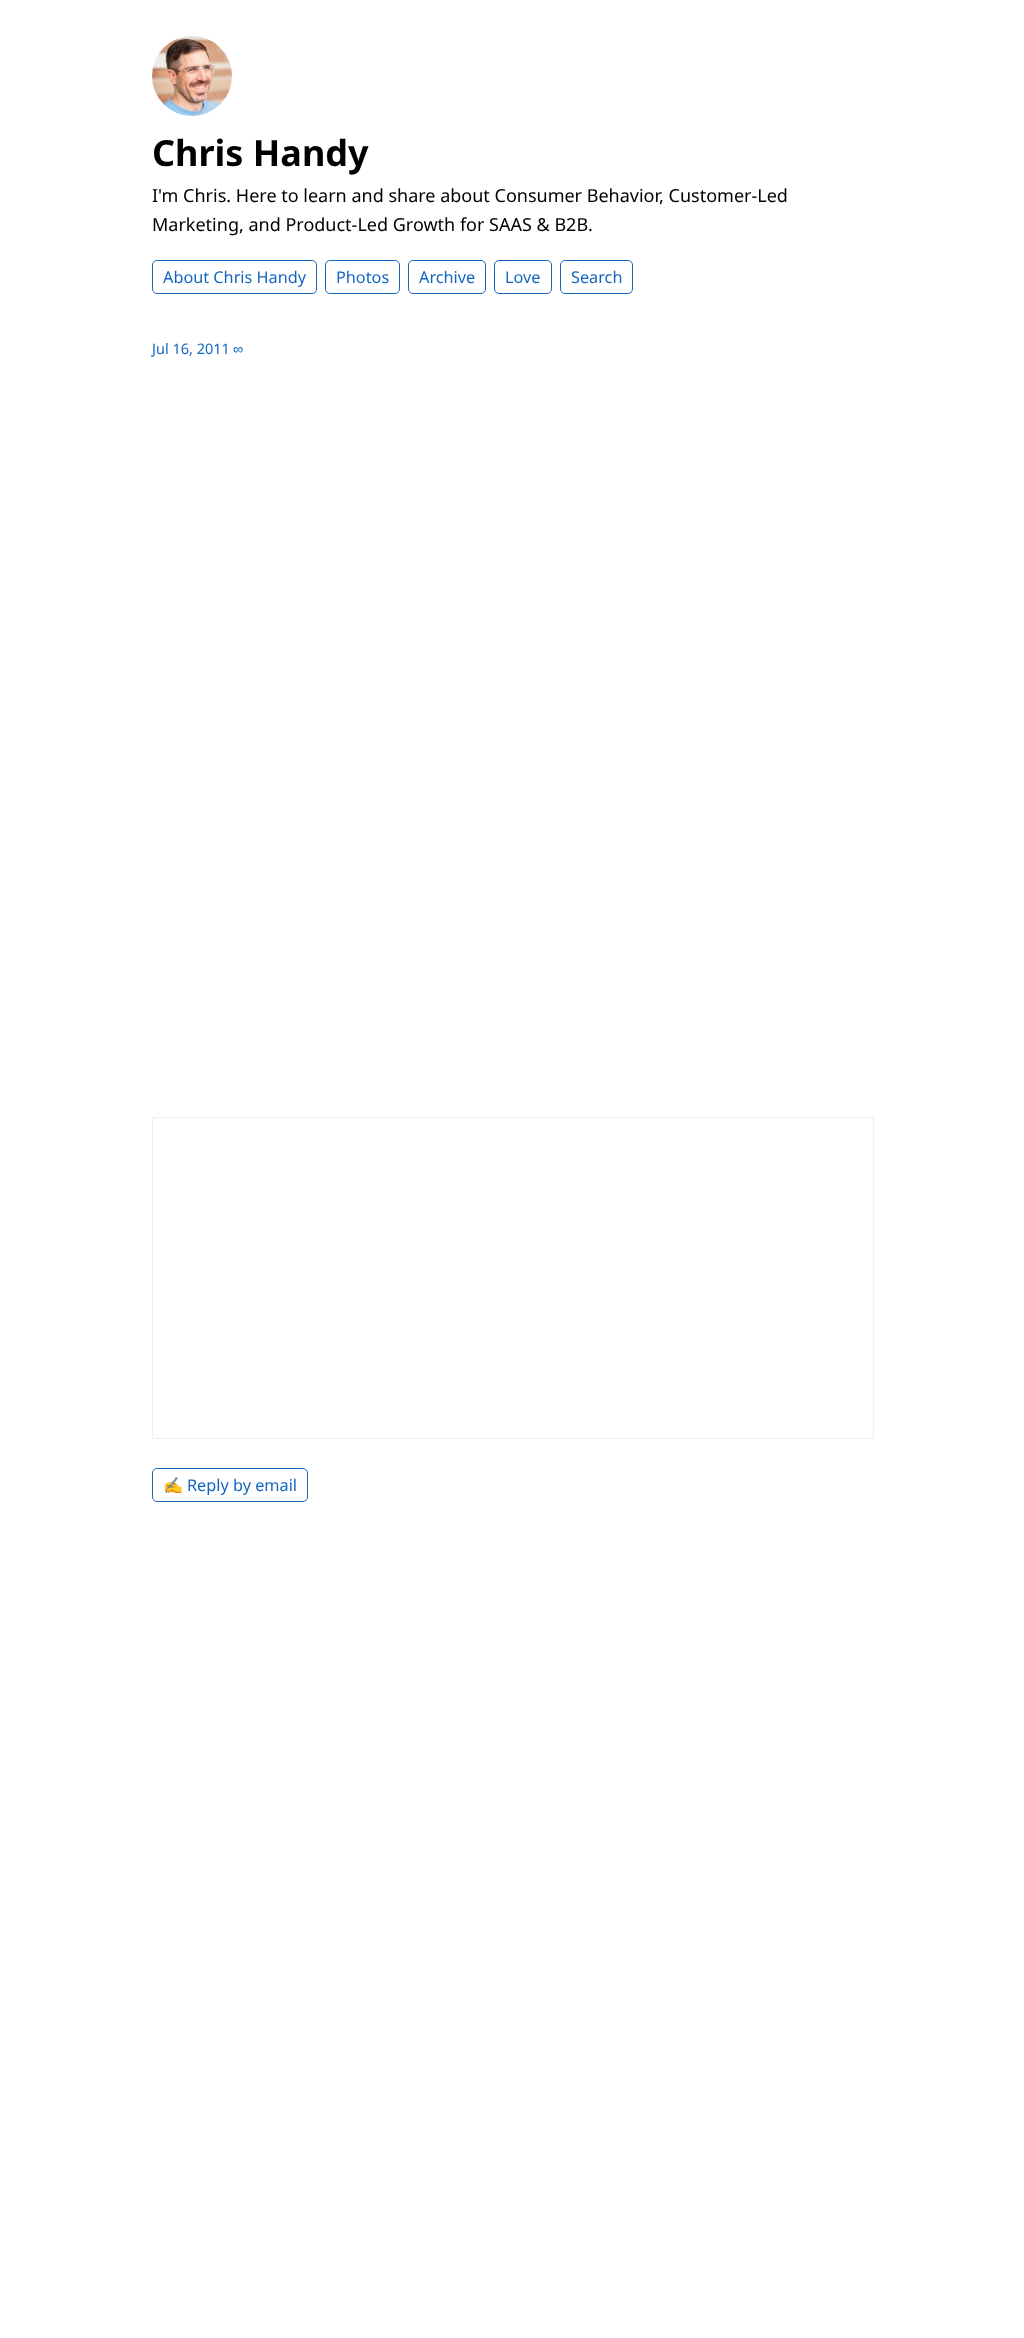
<svg xmlns="http://www.w3.org/2000/svg" width="1024" height="2338" viewBox="0 0 1024 2338">
  <rect width="100%" height="100%" fill="rgb(255,255,255)"/>
  <image x="152" y="36" width="80" height="80" href="pic1.png"/>
  <text x="152" y="166" font-family="Noto Sans" font-size="36" font-weight="bold" fill="rgb(0,0,0)">Chris Handy</text>
  <g font-family="Noto Sans" font-size="18" fill="rgb(0,0,0)">
    <text>
      <tspan x="152" y="202">I'm Chris. Here to learn and share about Consumer Behavior, Customer-Led</tspan>
      <tspan x="152" y="231">Marketing, and Product-Led Growth for SAAS &amp; B2B.</tspan>
    </text>
  </g>
  <rect x="152.5" y="260.5" width="164" height="33" rx="4.5" fill="none" stroke="rgb(21,101,192)"/>
  <text x="163" y="283" font-family="Noto Sans" font-size="16.25" fill="rgb(21,101,192)">About Chris Handy</text>
  <rect x="325.5" y="260.5" width="74" height="33" rx="4.5" fill="none" stroke="rgb(21,101,192)"/>
  <text x="336" y="283" font-family="Noto Sans" font-size="16.25" fill="rgb(21,101,192)">Photos</text>
  <rect x="408.5" y="260.5" width="77" height="33" rx="4.5" fill="none" stroke="rgb(21,101,192)"/>
  <text x="419" y="283" font-family="Noto Sans" font-size="16.25" fill="rgb(21,101,192)">Archive</text>
  <rect x="494.5" y="260.5" width="57" height="33" rx="4.5" fill="none" stroke="rgb(21,101,192)"/>
  <text x="505" y="283" font-family="Noto Sans" font-size="16.25" fill="rgb(21,101,192)">Love</text>
  <rect x="560.5" y="260.5" width="72" height="33" rx="4.5" fill="none" stroke="rgb(21,101,192)"/>
  <text x="571" y="283" font-family="Noto Sans" font-size="16.25" fill="rgb(21,101,192)">Search</text>
  <text x="152" y="354" font-family="Noto Sans" font-size="14.5" fill="rgb(21,101,192)">Jul 16, 2011</text>
  <text x="233" y="354" font-family="Liberation Sans" font-size="14.5" fill="rgb(21,101,192)">∞</text>
  <rect x="152.5" y="1117.5" width="721" height="321" fill="none" stroke="rgb(238,238,238)"/>
  <rect x="152.5" y="1468.5" width="155" height="33" rx="4.5" fill="none" stroke="rgb(21,101,192)"/>
  <text x="163" y="1491" font-family="Noto Color Emoji" font-size="16.25" fill="rgb(21,101,192)">✍️</text>
  <text x="187" y="1491" font-family="Noto Sans" font-size="16.25" fill="rgb(21,101,192)">Reply by email</text>
</svg>
